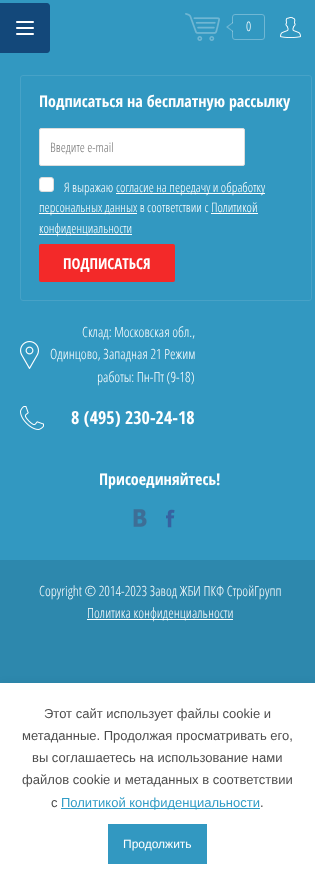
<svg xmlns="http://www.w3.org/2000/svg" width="315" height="884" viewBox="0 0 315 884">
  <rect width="100%" height="100%" fill="rgb(50,152,193)"/>
  <path d="M0 3H47C48.5 3 50 4.5 50 6V50C50 51.5 48.5 53 47 53H0Z" fill="rgb(19,72,122)"/>
  <image x="16" y="21" width="18" height="14" href="pic1.png"/>
  <image x="185" y="13" width="35" height="28" href="pic2.png"/>
  <rect x="232.5" y="14.5" width="32" height="25" rx="2.5" fill="none" stroke="rgb(112,183,212)"/>
  <path d="M233 22V32L226 27Z" fill="rgba(255,255,255,0.3)"/>
  <text x="246" y="31" font-family="Open Sans" font-size="13" font-weight="300" fill="rgb(255,255,255)">0</text>
  <path d="M233 23V31L228 27Z" fill="rgb(50,152,193)"/>
  <image x="280" y="17" width="21" height="21" href="pic3.png"/>
  <rect x="20.5" y="75.5" width="291" height="225" rx="2.5" fill="none" stroke="rgb(71,162,199)"/>
  <text x="39" y="107" font-family="Open Sans Condensed" font-size="16" font-weight="bold" fill="rgb(255,255,255)">Подписаться на бесплатную рассылку</text>
  <rect x="39.5" y="128.5" width="205" height="37" rx="1.5" fill="rgb(255,255,255)" stroke="rgb(221,221,221)"/>
  <text x="50" y="152" font-family="Open Sans" font-size="13" font-weight="300" fill="rgb(117,117,117)">Введите e-mail</text>
  <rect x="39.5" y="177.5" width="14" height="14" rx="2.5" fill="rgb(255,255,255)" stroke="rgb(221,221,221)"/>
  <text x="64" y="192" font-family="Open Sans" font-size="13" font-weight="300" fill="rgb(255,255,255)">Я выражаю</text>
  <rect x="116" y="193" width="149" height="1" fill="rgb(255,255,255)"/>
  <text x="116" y="192" font-family="Open Sans" font-size="13" font-weight="300" fill="rgb(255,255,255)">согласие на передачу и обработку</text>
  <rect x="39" y="213" width="98" height="1" fill="rgb(255,255,255)"/>
  <text x="39" y="212" font-family="Open Sans" font-size="13" font-weight="300" fill="rgb(255,255,255)">персональных данных в соответствии с Политикой</text>
  <rect x="39" y="234" width="93" height="1" fill="rgb(255,255,255)"/>
  <text x="39" y="233" font-family="Open Sans" font-size="13" font-weight="300" fill="rgb(255,255,255)">конфиденциальности</text>
  <rect x="211" y="213" width="47" height="1" fill="rgb(255,255,255)"/>
  <rect x="39" y="244" width="136" height="38" rx="2" fill="rgb(243,41,41)"/>
  <text x="63" y="269" font-family="Open Sans Condensed" font-size="15" font-weight="bold" fill="rgb(255,255,255)">ПОДПИСАТЬСЯ</text>
  <image x="20" y="341" width="19" height="28" href="pic4.png"/>
  <g font-family="Open Sans" font-size="14" font-weight="300" fill="rgb(255,255,255)">
    <text x="82" y="337">Склад: Московская обл.,</text>
    <text x="50" y="359">Одинцово, Западная 21 Режим</text>
    <text x="97" y="382">работы: Пн-Пт (9-18)</text>
  </g>
  <image x="20" y="406" width="24" height="24" href="pic5.png"/>
  <text x="71" y="424" font-family="Open Sans Condensed" font-size="18" font-weight="bold" fill="rgb(255,255,255)">8 (495) 230-24-18</text>
  <text x="99" y="485" font-family="Open Sans Condensed" font-size="16" font-weight="bold" fill="rgb(255,255,255)">Присоединяйтесь!</text>
  <image x="133" y="509" width="14" height="18" href="pic6.png"/>
  <image x="166" y="509" width="9" height="19" href="pic7.png"/>
  <rect x="0" y="560" width="315" height="123" fill="rgb(45,136,173)"/>
  <text x="39" y="596" font-family="Open Sans" font-size="14" font-weight="300" fill="rgb(255,255,255)">Copyright © 2014-2023 Завод ЖБИ ПКФ СтройГрупп</text>
  <rect x="87" y="619" width="146" height="1" fill="rgb(255,255,255)"/>
  <text x="87" y="618" font-family="Open Sans" font-size="14" font-weight="300" fill="rgb(255,255,255)">Политика конфиденциальности</text>
  <rect x="0" y="684" width="315" height="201" fill="rgba(0,0,0,0.06)" filter="blur(5px)"/>
  <rect x="0" y="683" width="315" height="201" fill="rgb(255,255,255)"/>
  <g font-family="Liberation Sans" font-size="13" fill="rgb(77,77,77)">
    <text x="44" y="718">Этот сайт использует файлы cookie и</text>
    <text x="22" y="740">метаданные. Продолжая просматривать его,</text>
    <text x="32" y="762">вы соглашаетесь на использование нами</text>
    <text x="22" y="784">файлов cookie и метаданных в соответствии</text>
    <text x="51" y="807">с</text>
  </g>
  <rect x="61" y="808" width="199" height="1" fill="rgb(49,156,198)"/>
  <text x="61" y="807" font-family="Liberation Sans" font-size="13" fill="rgb(49,156,198)">Политикой конфиденциальности</text>
  <text x="260" y="807" font-family="Liberation Sans" font-size="13" fill="rgb(77,77,77)">.</text>
  <rect x="108" y="824" width="99" height="40" fill="rgb(50,152,193)"/>
  <text x="123" y="848" font-family="Liberation Sans" font-size="12" fill="rgb(255,255,255)">Продолжить</text>
</svg>
